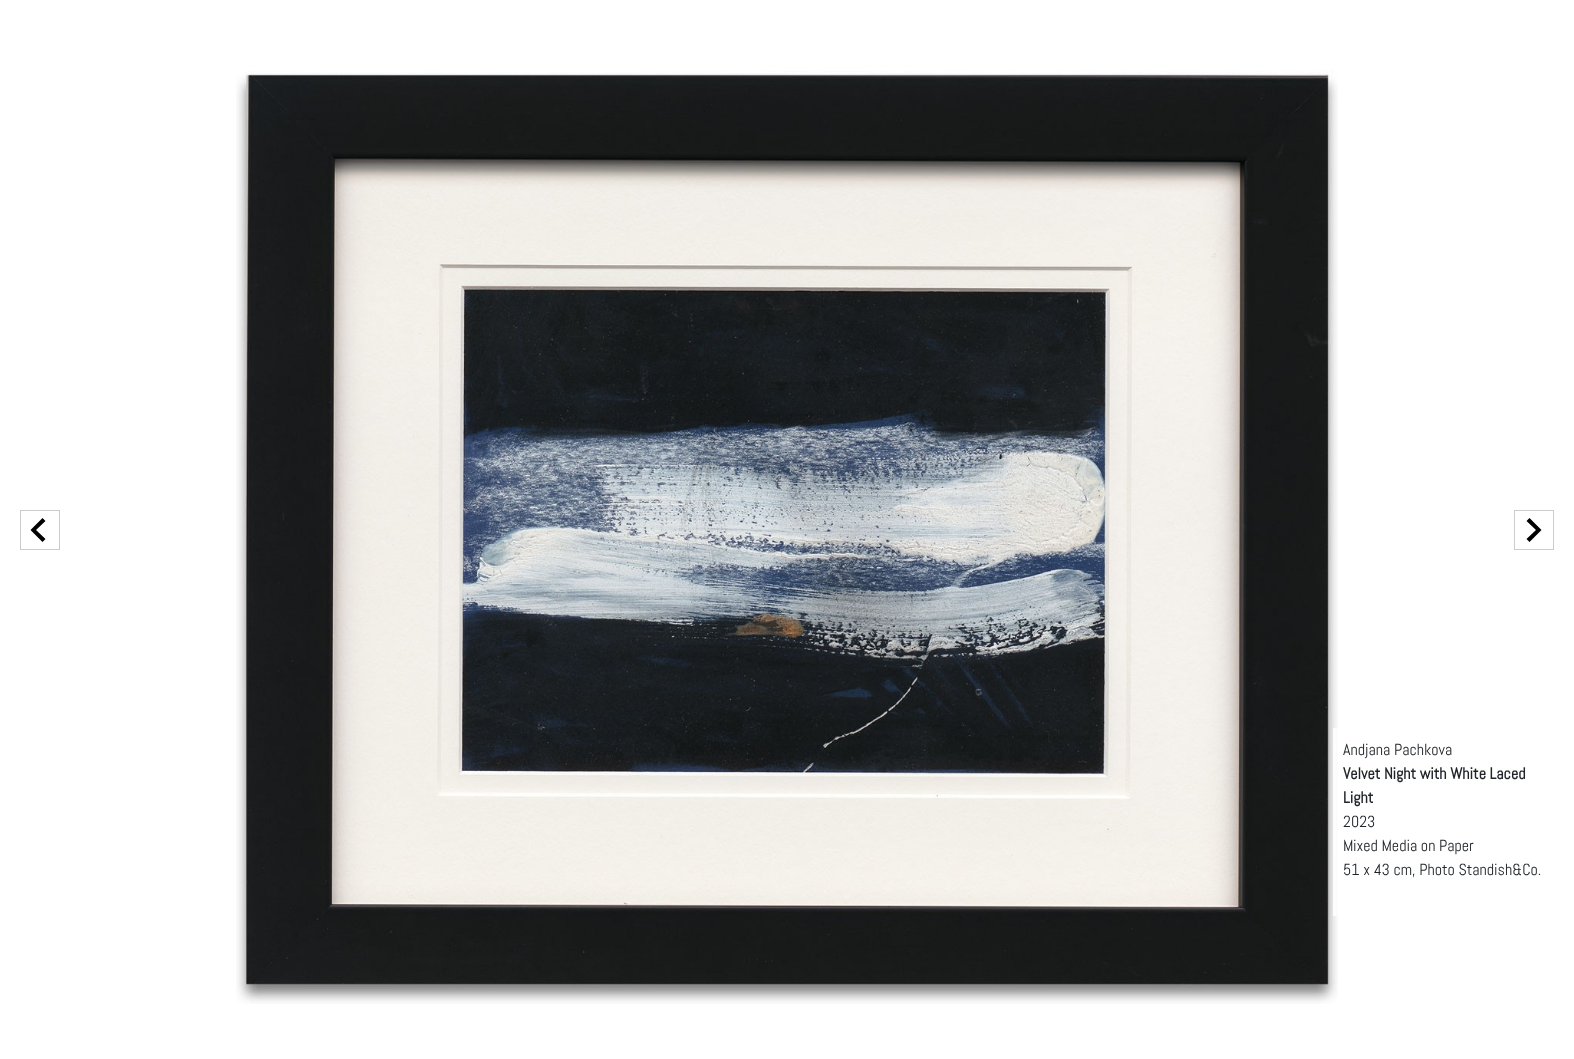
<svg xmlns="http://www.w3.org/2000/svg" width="1574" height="1059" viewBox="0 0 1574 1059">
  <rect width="100%" height="100%" fill="rgb(255,255,255)"/>
  <rect x="20.5" y="510.5" width="39" height="39" fill="none" stroke="rgb(204,204,204)"/>
  <path d="M42.5 518L45.5 521L36 530L45.5 539L42.5 542L30.5 530Z" fill="rgb(0,0,0)"/>
  <image x="236" y="70" width="1102" height="934" href="pic1.png"/>
  <rect x="1514.5" y="510.5" width="39" height="39" fill="none" stroke="rgb(204,204,204)"/>
  <path d="M1529.5 542L1526.5 539L1536 530L1526.5 521L1529.5 518L1541.5 530Z" fill="rgb(0,0,0)"/>
  <rect x="1333" y="728" width="5" height="188" fill="rgba(255,255,255,0.6)"/>
  <rect x="1333" y="728" width="3" height="188" fill="rgba(255,255,255,0.56)"/>
  <text x="1343" y="755" font-family="Abel" font-size="16" fill="rgb(33,37,41)">Andjana Pachkova</text>
  <g font-family="Abel" font-size="16" font-weight="bold" fill="rgb(33,37,41)">
    <text>
      <tspan x="1343" y="779">Velvet Night with White Laced</tspan>
      <tspan x="1343" y="803">Light</tspan>
    </text>
  </g>
  <g font-family="Abel" font-size="16" fill="rgb(33,37,41)">
    <text>
      <tspan x="1343" y="827">2023</tspan>
      <tspan x="1343" y="851">Mixed Media on Paper</tspan>
      <tspan x="1343" y="875">51 x 43 cm, Photo Standish&amp;Co.</tspan>
    </text>
  </g>
</svg>
